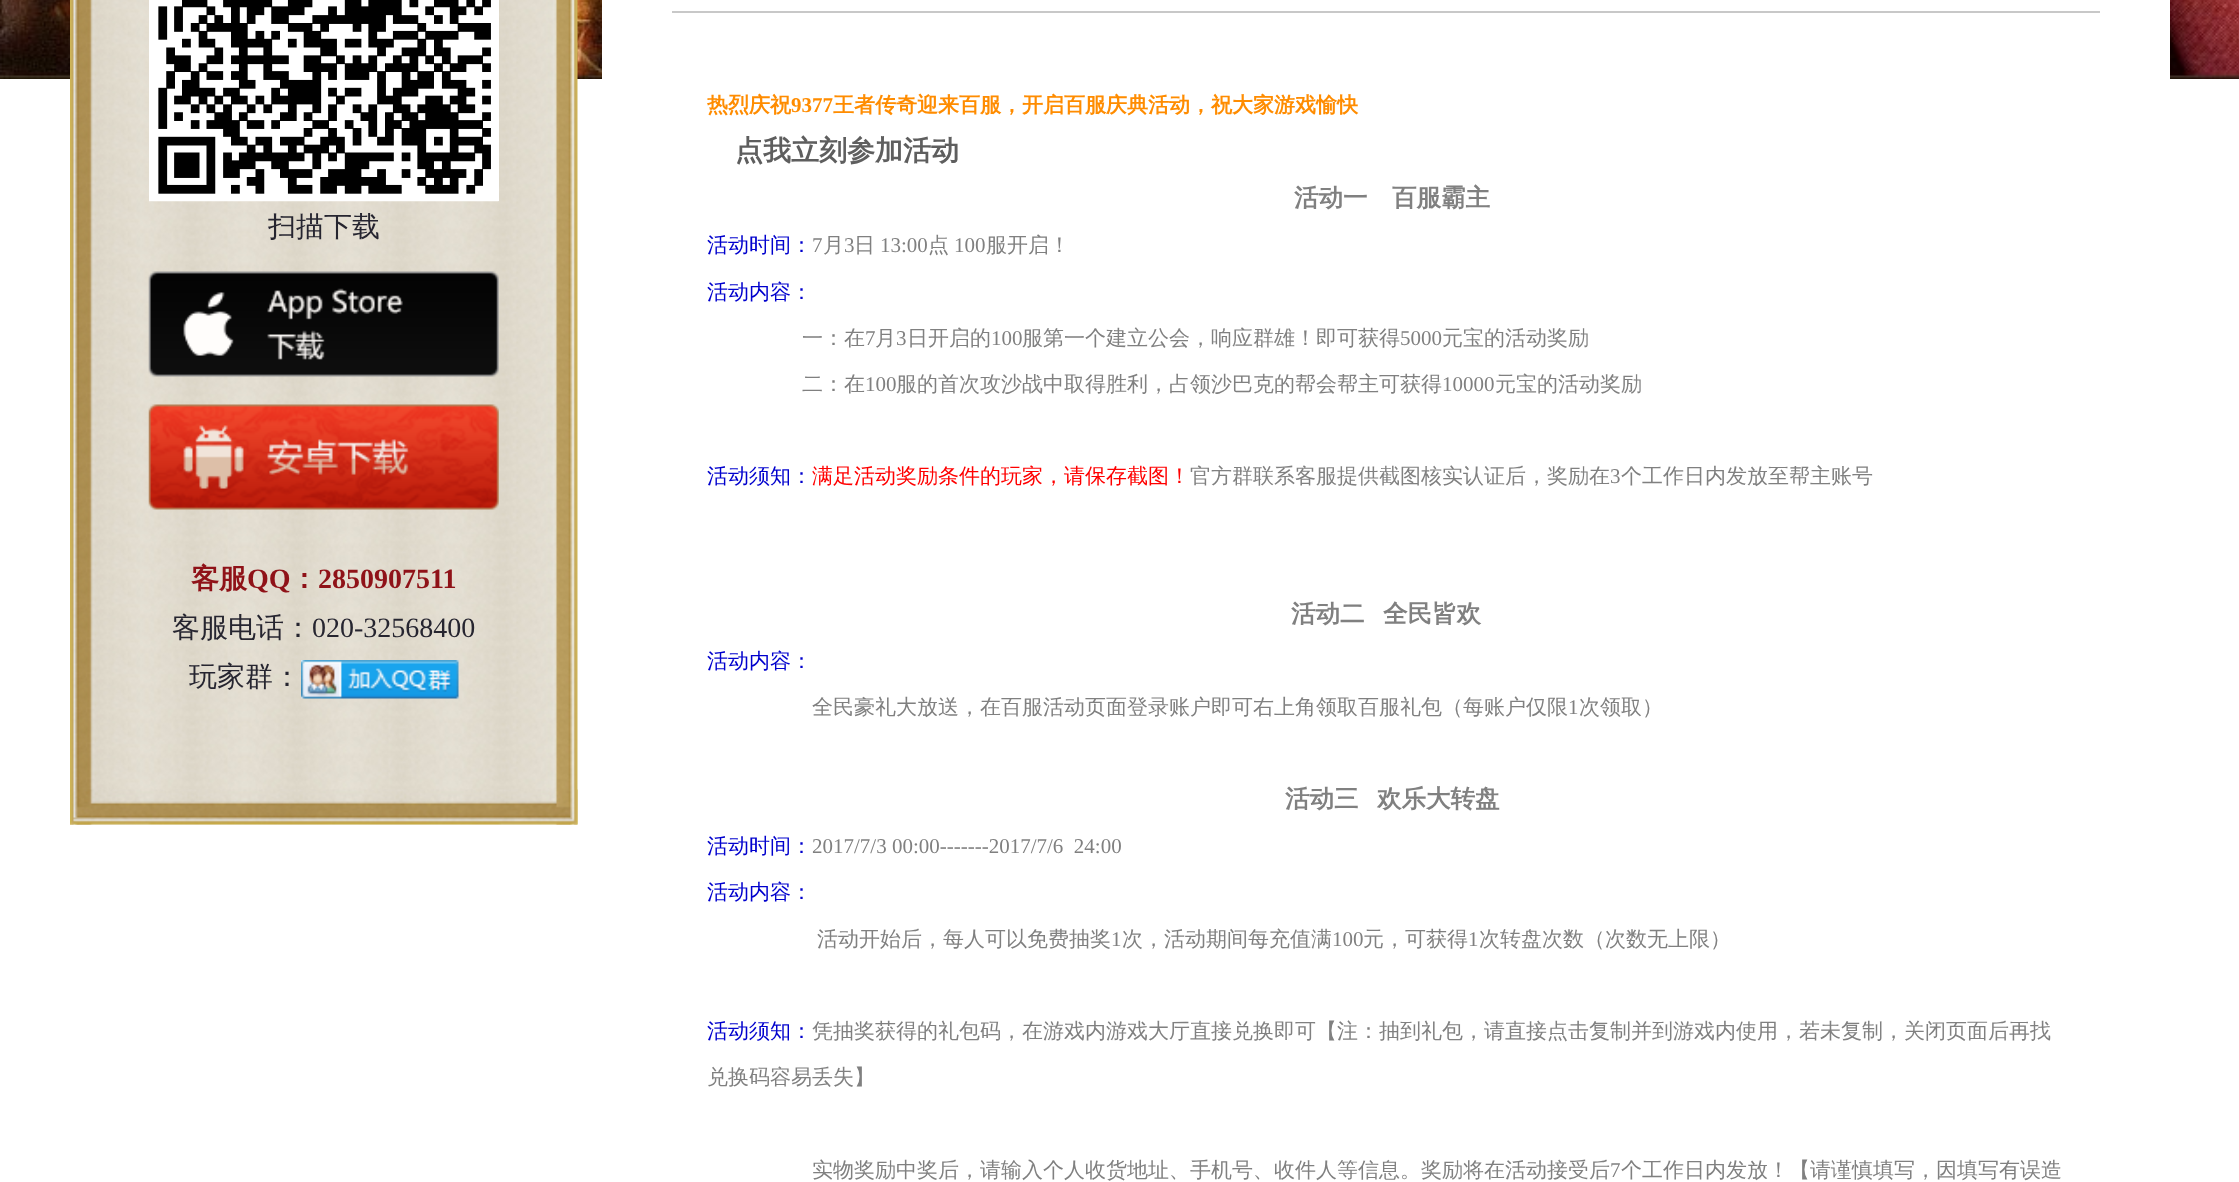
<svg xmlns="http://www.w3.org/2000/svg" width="2239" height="1182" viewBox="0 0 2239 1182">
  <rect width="100%" height="100%" fill="rgb(255,255,255)"/>
  <image x="0" y="0" width="2239" height="79" href="pic1.png"/>
  <image x="70" y="0" width="508" height="825" href="pic2.png"/>
  <rect x="498" y="0" width="1" height="201" fill="rgb(255,255,255)"/>
  <image x="149" y="0" width="350" height="202" href="pic3.png"/>
  <text x="268" y="236" font-family="WenQuanYi Zen Hei" font-size="28" font-weight="500" fill="rgb(38,37,48)">扫描下载</text>
  <image x="148" y="271" width="351" height="106" href="pic4.png"/>
  <image x="148" y="404" width="351" height="106" href="pic5.png"/>
  <text x="191" y="588" font-family="WenQuanYi Zen Hei" font-size="28" font-weight="bold" fill="rgb(143,18,24)">客服</text>
  <text x="247" y="588" font-family="Liberation Serif" font-size="28" font-weight="bold" fill="rgb(143,18,24)">QQ</text>
  <text x="290" y="588" font-family="WenQuanYi Zen Hei" font-size="28" font-weight="bold" fill="rgb(143,18,24)">：</text>
  <text x="318" y="588" font-family="Liberation Serif" font-size="28" font-weight="bold" fill="rgb(143,18,24)">2850907511</text>
  <text x="172" y="637" font-family="WenQuanYi Zen Hei" font-size="28" font-weight="500" fill="rgb(38,37,48)">客服电话：</text>
  <text x="312" y="637" font-family="Liberation Serif" font-size="28" fill="rgb(38,37,48)">020-32568400</text>
  <text x="189" y="686" font-family="WenQuanYi Zen Hei" font-size="28" font-weight="500" fill="rgb(38,37,48)">玩家群：</text>
  <image x="301" y="660" width="158" height="39" href="pic6.png"/>
  <image x="70" y="789" width="508" height="36" href="pic7.png"/>
  <rect x="602" y="0" width="1568" height="79" fill="rgb(255,255,255)"/>
  <rect x="672" y="11" width="1428" height="2" fill="rgb(200,200,200)"/>
  <text x="707" y="112" font-family="WenQuanYi Zen Hei" font-size="21" font-weight="bold" fill="rgb(255,140,0)">热烈庆祝</text>
  <text x="791" y="112" font-family="Liberation Serif" font-size="21" font-weight="bold" fill="rgb(255,140,0)">9377</text>
  <text x="833" y="112" font-family="WenQuanYi Zen Hei" font-size="21" font-weight="bold" fill="rgb(255,140,0)">王者传奇迎来百服，开启百服庆典活动，祝大家游戏愉快</text>
  <text x="735" y="160" font-family="WenQuanYi Zen Hei" font-size="28" font-weight="bold" fill="rgb(94,94,94)">点我立刻参加活动</text>
  <g font-family="WenQuanYi Zen Hei" font-size="24.5" font-weight="bold" fill="rgb(128,128,128)">
    <text x="1294" y="206">活动一</text>
    <text x="1392" y="206">百服霸主</text>
  </g>
  <text x="707" y="252" font-family="WenQuanYi Zen Hei" font-size="21" font-weight="500" fill="rgb(0,0,205)">活动时间：</text>
  <text x="812" y="252" font-family="Liberation Serif" font-size="21" fill="rgb(128,128,128)">7</text>
  <text x="823" y="252" font-family="WenQuanYi Zen Hei" font-size="21" font-weight="500" fill="rgb(128,128,128)">月</text>
  <text x="844" y="252" font-family="Liberation Serif" font-size="21" fill="rgb(128,128,128)">3</text>
  <text x="854" y="252" font-family="WenQuanYi Zen Hei" font-size="21" font-weight="500" fill="rgb(128,128,128)">日</text>
  <text x="880" y="252" font-family="Liberation Serif" font-size="21" fill="rgb(128,128,128)">13:00</text>
  <text x="928" y="252" font-family="WenQuanYi Zen Hei" font-size="21" font-weight="500" fill="rgb(128,128,128)">点</text>
  <text x="954" y="252" font-family="Liberation Serif" font-size="21" fill="rgb(128,128,128)">100</text>
  <text x="986" y="252" font-family="WenQuanYi Zen Hei" font-size="21" font-weight="500" fill="rgb(128,128,128)">服开启！</text>
  <text x="707" y="299" font-family="WenQuanYi Zen Hei" font-size="21" font-weight="500" fill="rgb(0,0,205)">活动内容：</text>
  <text x="802" y="345" font-family="WenQuanYi Zen Hei" font-size="21" font-weight="500" fill="rgb(128,128,128)">一：在</text>
  <text x="865" y="345" font-family="Liberation Serif" font-size="21" fill="rgb(128,128,128)">7</text>
  <text x="875" y="345" font-family="WenQuanYi Zen Hei" font-size="21" font-weight="500" fill="rgb(128,128,128)">月</text>
  <text x="896" y="345" font-family="Liberation Serif" font-size="21" fill="rgb(128,128,128)">3</text>
  <text x="907" y="345" font-family="WenQuanYi Zen Hei" font-size="21" font-weight="500" fill="rgb(128,128,128)">日开启的</text>
  <text x="991" y="345" font-family="Liberation Serif" font-size="21" fill="rgb(128,128,128)">100</text>
  <text x="1022" y="345" font-family="WenQuanYi Zen Hei" font-size="21" font-weight="500" fill="rgb(128,128,128)">服第一个建立公会，响应群雄！即可获得</text>
  <text x="1400" y="345" font-family="Liberation Serif" font-size="21" fill="rgb(128,128,128)">5000</text>
  <g font-family="WenQuanYi Zen Hei" font-size="21" font-weight="500" fill="rgb(128,128,128)">
    <text x="1442" y="345">元宝的活动奖励</text>
    <text x="802" y="391">二：在</text>
  </g>
  <text x="865" y="391" font-family="Liberation Serif" font-size="21" fill="rgb(128,128,128)">100</text>
  <text x="896" y="391" font-family="WenQuanYi Zen Hei" font-size="21" font-weight="500" fill="rgb(128,128,128)">服的首次攻沙战中取得胜利，占领沙巴克的帮会帮主可获得</text>
  <text x="1442" y="391" font-family="Liberation Serif" font-size="21" fill="rgb(128,128,128)">10000</text>
  <text x="1495" y="391" font-family="WenQuanYi Zen Hei" font-size="21" font-weight="500" fill="rgb(128,128,128)">元宝的活动奖励</text>
  <text x="707" y="483" font-family="WenQuanYi Zen Hei" font-size="21" font-weight="500" fill="rgb(0,0,205)">活动须知：</text>
  <text x="812" y="483" font-family="WenQuanYi Zen Hei" font-size="21" font-weight="500" fill="rgb(255,0,0)">满足活动奖励条件的玩家，请保存截图！</text>
  <text x="1190" y="483" font-family="WenQuanYi Zen Hei" font-size="21" font-weight="500" fill="rgb(128,128,128)">官方群联系客服提供截图核实认证后，奖励在</text>
  <text x="1610" y="483" font-family="Liberation Serif" font-size="21" fill="rgb(128,128,128)">3</text>
  <text x="1621" y="483" font-family="WenQuanYi Zen Hei" font-size="21" font-weight="500" fill="rgb(128,128,128)">个工作日内发放至帮主账号</text>
  <g font-family="WenQuanYi Zen Hei" font-size="24.5" font-weight="bold" fill="rgb(128,128,128)">
    <text x="1291" y="622">活动二</text>
    <text x="1383" y="622">全民皆欢</text>
  </g>
  <text x="707" y="668" font-family="WenQuanYi Zen Hei" font-size="21" font-weight="500" fill="rgb(0,0,205)">活动内容：</text>
  <text x="812" y="714" font-family="WenQuanYi Zen Hei" font-size="21" font-weight="500" fill="rgb(128,128,128)">全民豪礼大放送，在百服活动页面登录账户即可右上角领取百服礼包（每账户仅限</text>
  <text x="1568" y="714" font-family="Liberation Serif" font-size="21" fill="rgb(128,128,128)">1</text>
  <text x="1579" y="714" font-family="WenQuanYi Zen Hei" font-size="21" font-weight="500" fill="rgb(128,128,128)">次领取）</text>
  <g font-family="WenQuanYi Zen Hei" font-size="24.5" font-weight="bold" fill="rgb(128,128,128)">
    <text x="1285" y="807">活动三</text>
    <text x="1377" y="807">欢乐大转盘</text>
  </g>
  <text x="707" y="853" font-family="WenQuanYi Zen Hei" font-size="21" font-weight="500" fill="rgb(0,0,205)">活动时间：</text>
  <text x="812" y="853" font-family="Liberation Serif" font-size="21" fill="rgb(128,128,128)" xml:space="preserve">2017/7/3 00:00-------2017/7/6  24:00</text>
  <text x="707" y="899" font-family="WenQuanYi Zen Hei" font-size="21" font-weight="500" fill="rgb(0,0,205)">活动内容：</text>
  <text x="817" y="946" font-family="WenQuanYi Zen Hei" font-size="21" font-weight="500" fill="rgb(128,128,128)">活动开始后，每人可以免费抽奖</text>
  <text x="1111" y="946" font-family="Liberation Serif" font-size="21" fill="rgb(128,128,128)">1</text>
  <text x="1122" y="946" font-family="WenQuanYi Zen Hei" font-size="21" font-weight="500" fill="rgb(128,128,128)">次，活动期间每充值满</text>
  <text x="1332" y="946" font-family="Liberation Serif" font-size="21" fill="rgb(128,128,128)">100</text>
  <text x="1363" y="946" font-family="WenQuanYi Zen Hei" font-size="21" font-weight="500" fill="rgb(128,128,128)">元，可获得</text>
  <text x="1468" y="946" font-family="Liberation Serif" font-size="21" fill="rgb(128,128,128)">1</text>
  <text x="1479" y="946" font-family="WenQuanYi Zen Hei" font-size="21" font-weight="500" fill="rgb(128,128,128)">次转盘次数（次数无上限）</text>
  <text x="707" y="1038" font-family="WenQuanYi Zen Hei" font-size="21" font-weight="500" fill="rgb(0,0,205)">活动须知：</text>
  <g font-family="WenQuanYi Zen Hei" font-size="21" font-weight="500" fill="rgb(128,128,128)">
    <text x="812" y="1038">凭抽奖获得的礼包码，在游戏内游戏大厅直接兑换即可【注：抽到礼包，请直接点击复制并到游戏内使用，若未复制，关闭页面后再找</text>
    <text x="707" y="1084">兑换码容易丢失】</text>
    <text x="812" y="1177">实物奖励中奖后，请输入个人收货地址、手机号、收件人等信息。奖励将在活动接受后</text>
  </g>
  <text x="1610" y="1177" font-family="Liberation Serif" font-size="21" fill="rgb(128,128,128)">7</text>
  <text x="1621" y="1177" font-family="WenQuanYi Zen Hei" font-size="21" font-weight="500" fill="rgb(128,128,128)">个工作日内发放！【请谨慎填写，因填写有误造</text>
</svg>
